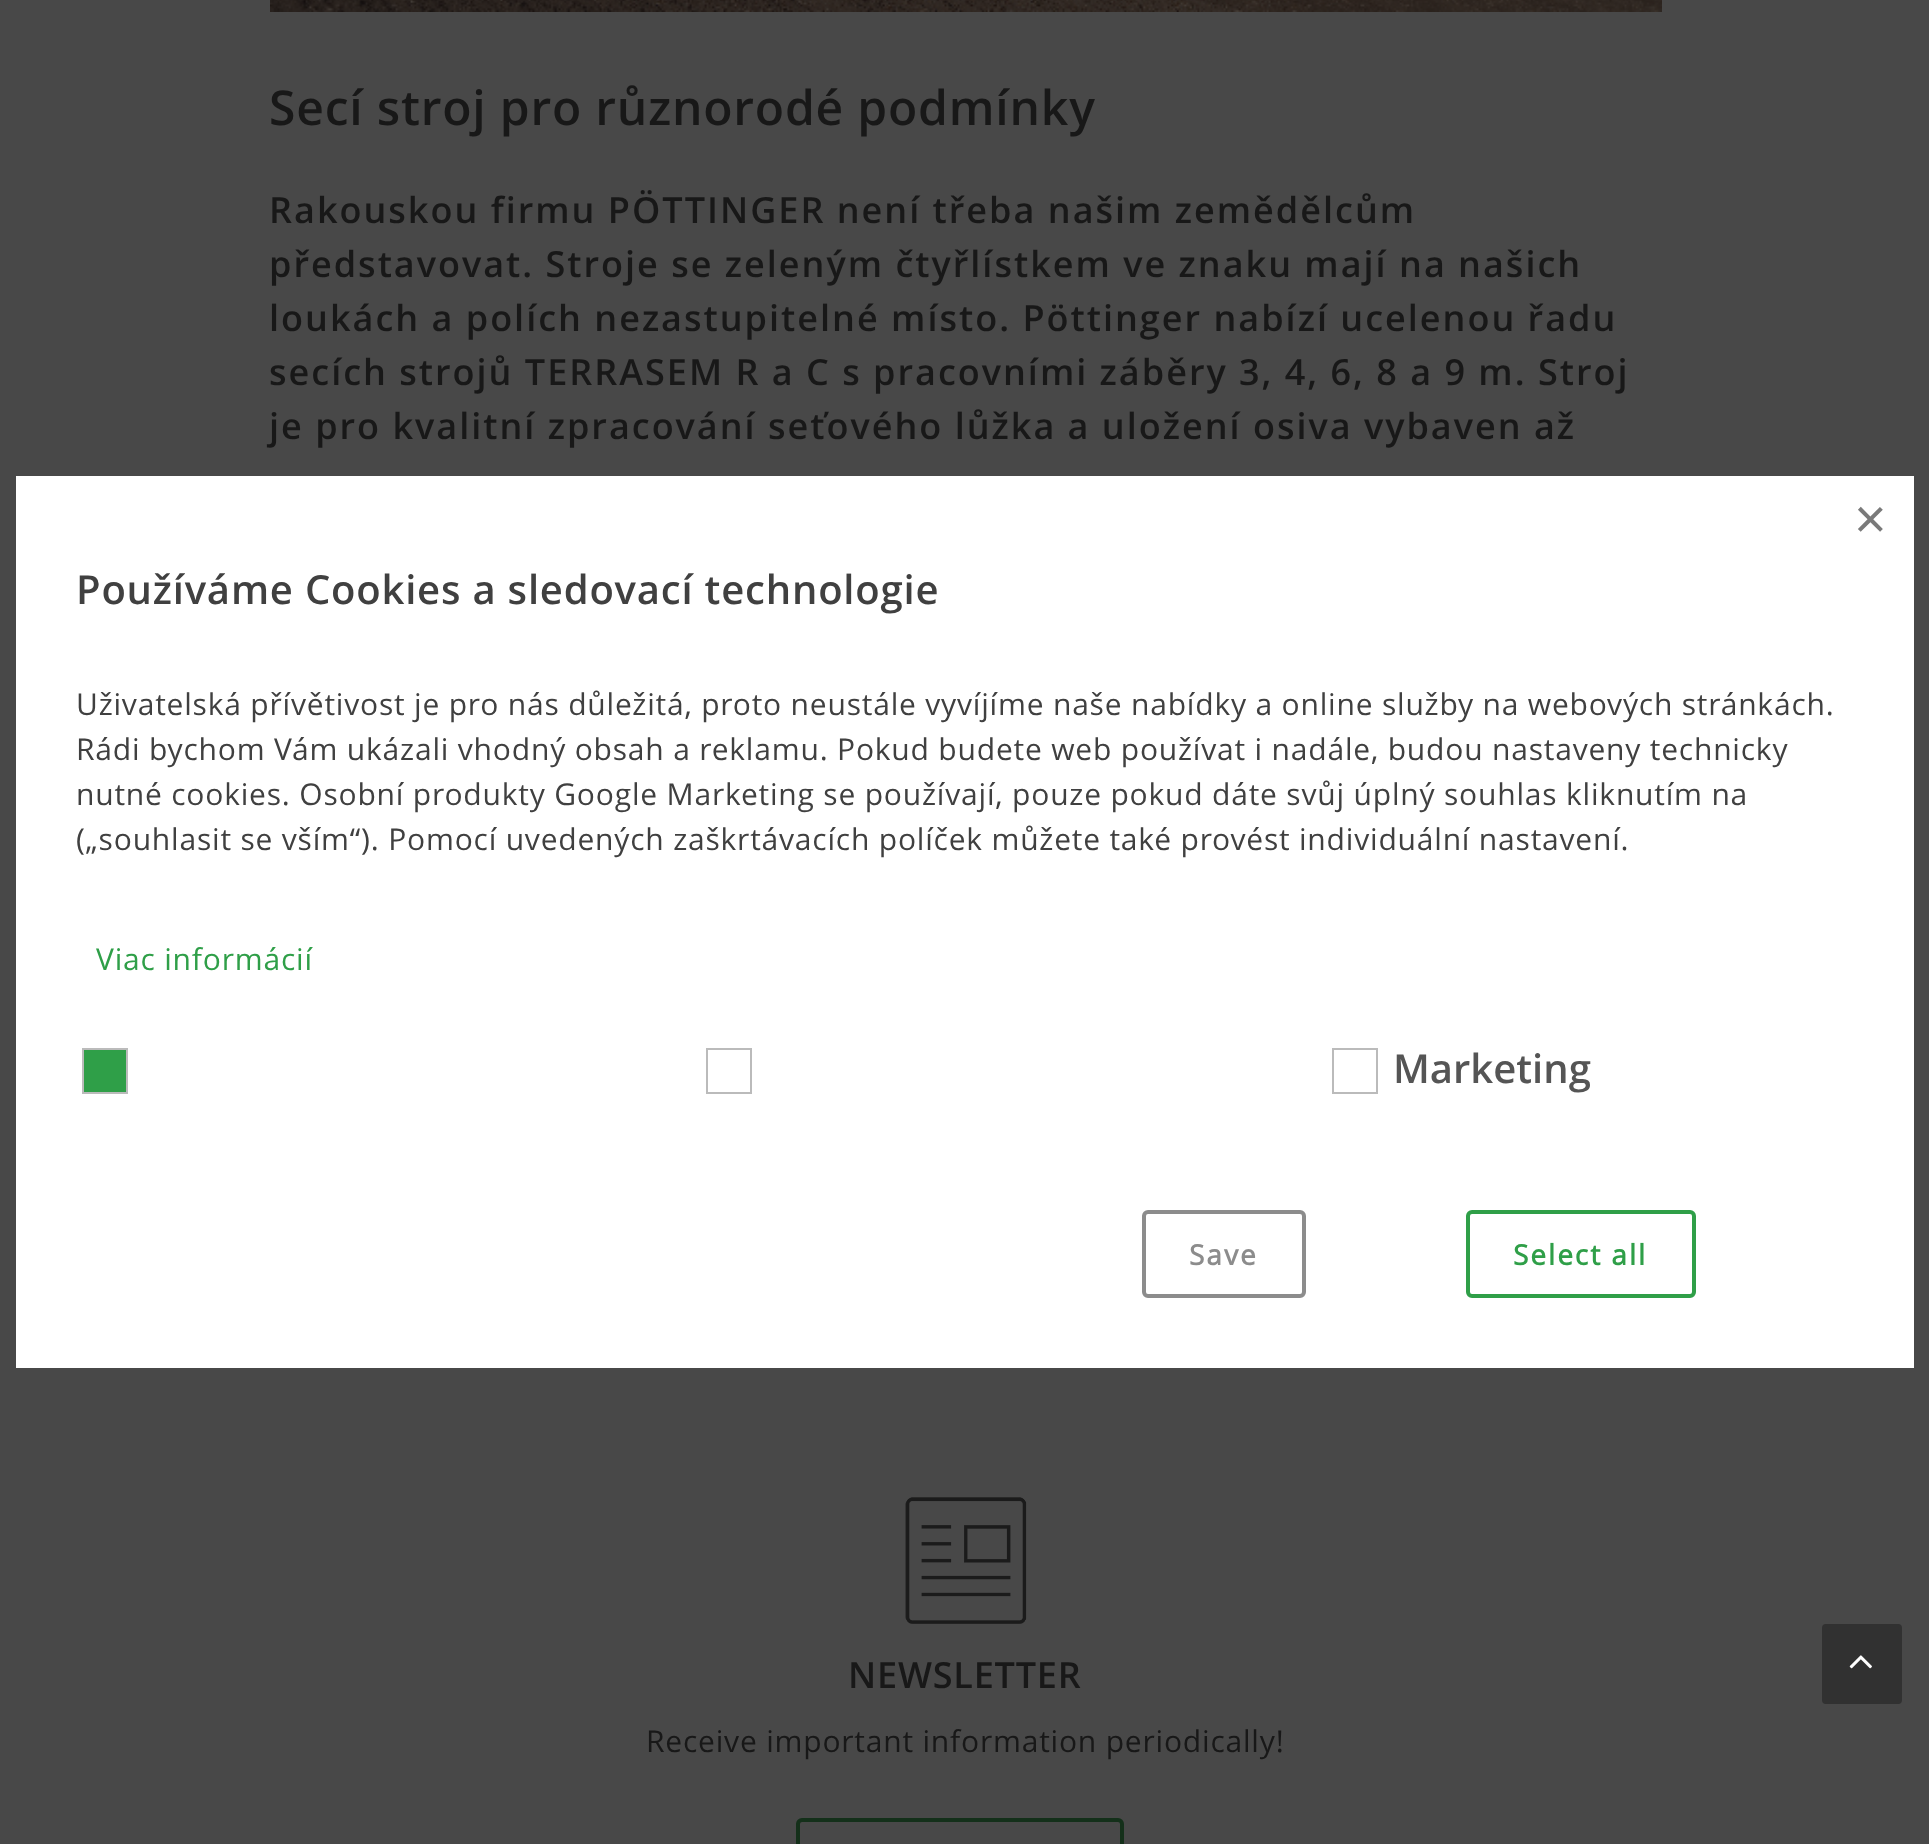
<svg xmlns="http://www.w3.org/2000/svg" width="1929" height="1844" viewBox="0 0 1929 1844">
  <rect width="100%" height="100%" fill="rgb(72,72,72)"/>
  <image x="270" y="0" width="1392" height="12" href="pic1.png"/>
  <text x="269" y="125" font-family="Open Sans" font-size="48" font-weight="600" letter-spacing="0.8" fill="rgb(24,24,24)">Secí stroj pro různorodé podmínky</text>
  <g font-family="Open Sans" font-size="36" font-weight="600" letter-spacing="2" fill="rgb(24,24,24)">
    <text>
      <tspan x="269" y="223">Rakouskou firmu PÖTTINGER není třeba našim zemědělcům</tspan>
      <tspan x="269" y="277">představovat. Stroje se zeleným čtyřlístkem ve znaku mají na našich</tspan>
      <tspan x="269" y="331">loukách a polích nezastupitelné místo. Pöttinger nabízí ucelenou řadu</tspan>
      <tspan x="269" y="385">secích strojů TERRASEM R a C s pracovními záběry 3, 4, 6, 8 a 9 m. Stroj</tspan>
      <tspan x="269" y="439">je pro kvalitní zpracování seťového lůžka a uložení osiva vybaven až</tspan>
    </text>
  </g>
  <image x="905" y="1497" width="122" height="127" href="pic2.png"/>
  <text x="848" y="1688" font-family="Open Sans" font-size="36" font-weight="600" letter-spacing="0.8" fill="rgb(24,24,24)">NEWSLETTER</text>
  <text x="646" y="1752" font-family="Open Sans" font-size="30" letter-spacing="0.8" fill="rgb(24,24,24)">Receive important information periodically!</text>
  <rect x="798" y="1820" width="324" height="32" rx="4" fill="none" stroke="rgb(20,48,26)" stroke-width="4"/>
  <rect x="16" y="476" width="1898" height="892" fill="rgb(255,255,255)"/>
  <text x="1854" y="538" font-family="Liberation Sans" font-size="56" fill="rgb(122,122,122)">×</text>
  <text x="76" y="604" font-family="Open Sans" font-size="40" font-weight="600" letter-spacing="0.8" fill="rgb(64,64,64)">Používáme Cookies a sledovací technologie</text>
  <g font-family="Open Sans" font-size="30" letter-spacing="0.8" fill="rgb(64,64,64)">
    <text>
      <tspan x="76" y="715">Uživatelská přívětivost je pro nás důležitá, proto neustále vyvíjíme naše nabídky a online služby na webových stránkách.</tspan>
      <tspan x="76" y="760">Rádi bychom Vám ukázali vhodný obsah a reklamu. Pokud budete web používat i nadále, budou nastaveny technicky</tspan>
      <tspan x="76" y="805">nutné cookies. Osobní produkty Google Marketing se používají, pouze pokud dáte svůj úplný souhlas kliknutím na</tspan>
      <tspan x="76" y="850">(„souhlasit se vším“). Pomocí uvedených zaškrtávacích políček můžete také provést individuální nastavení.</tspan>
    </text>
  </g>
  <text x="96" y="970" font-family="Open Sans" font-size="30" letter-spacing="0.8" fill="rgb(47,159,72)">Viac informácií</text>
  <rect x="83" y="1049" width="44" height="44" fill="rgb(47,159,72)" stroke="rgb(187,187,187)" stroke-width="2"/>
  <rect x="707" y="1049" width="44" height="44" fill="none" stroke="rgb(187,187,187)" stroke-width="2"/>
  <rect x="1333" y="1049" width="44" height="44" fill="none" stroke="rgb(187,187,187)" stroke-width="2"/>
  <text x="1393" y="1083" font-family="Open Sans" font-size="40" font-weight="600" fill="rgb(85,85,85)">Marketing</text>
  <rect x="1144" y="1212" width="160" height="84" rx="4" fill="none" stroke="rgb(140,140,140)" stroke-width="4"/>
  <text x="1189" y="1265" font-family="Open Sans" font-size="28" font-weight="bold" letter-spacing="2" fill="rgb(140,140,140)">Save</text>
  <rect x="1468" y="1212" width="226" height="84" rx="4" fill="none" stroke="rgb(47,159,72)" stroke-width="4"/>
  <text x="1513" y="1265" font-family="Open Sans" font-size="28" font-weight="bold" letter-spacing="2" fill="rgb(47,159,72)">Select all</text>
  <rect x="1822" y="1624" width="80" height="80" rx="4" fill="rgb(49,49,49)"/>
  <image x="1849" y="1655" width="23" height="14" href="pic3.png"/>
</svg>
